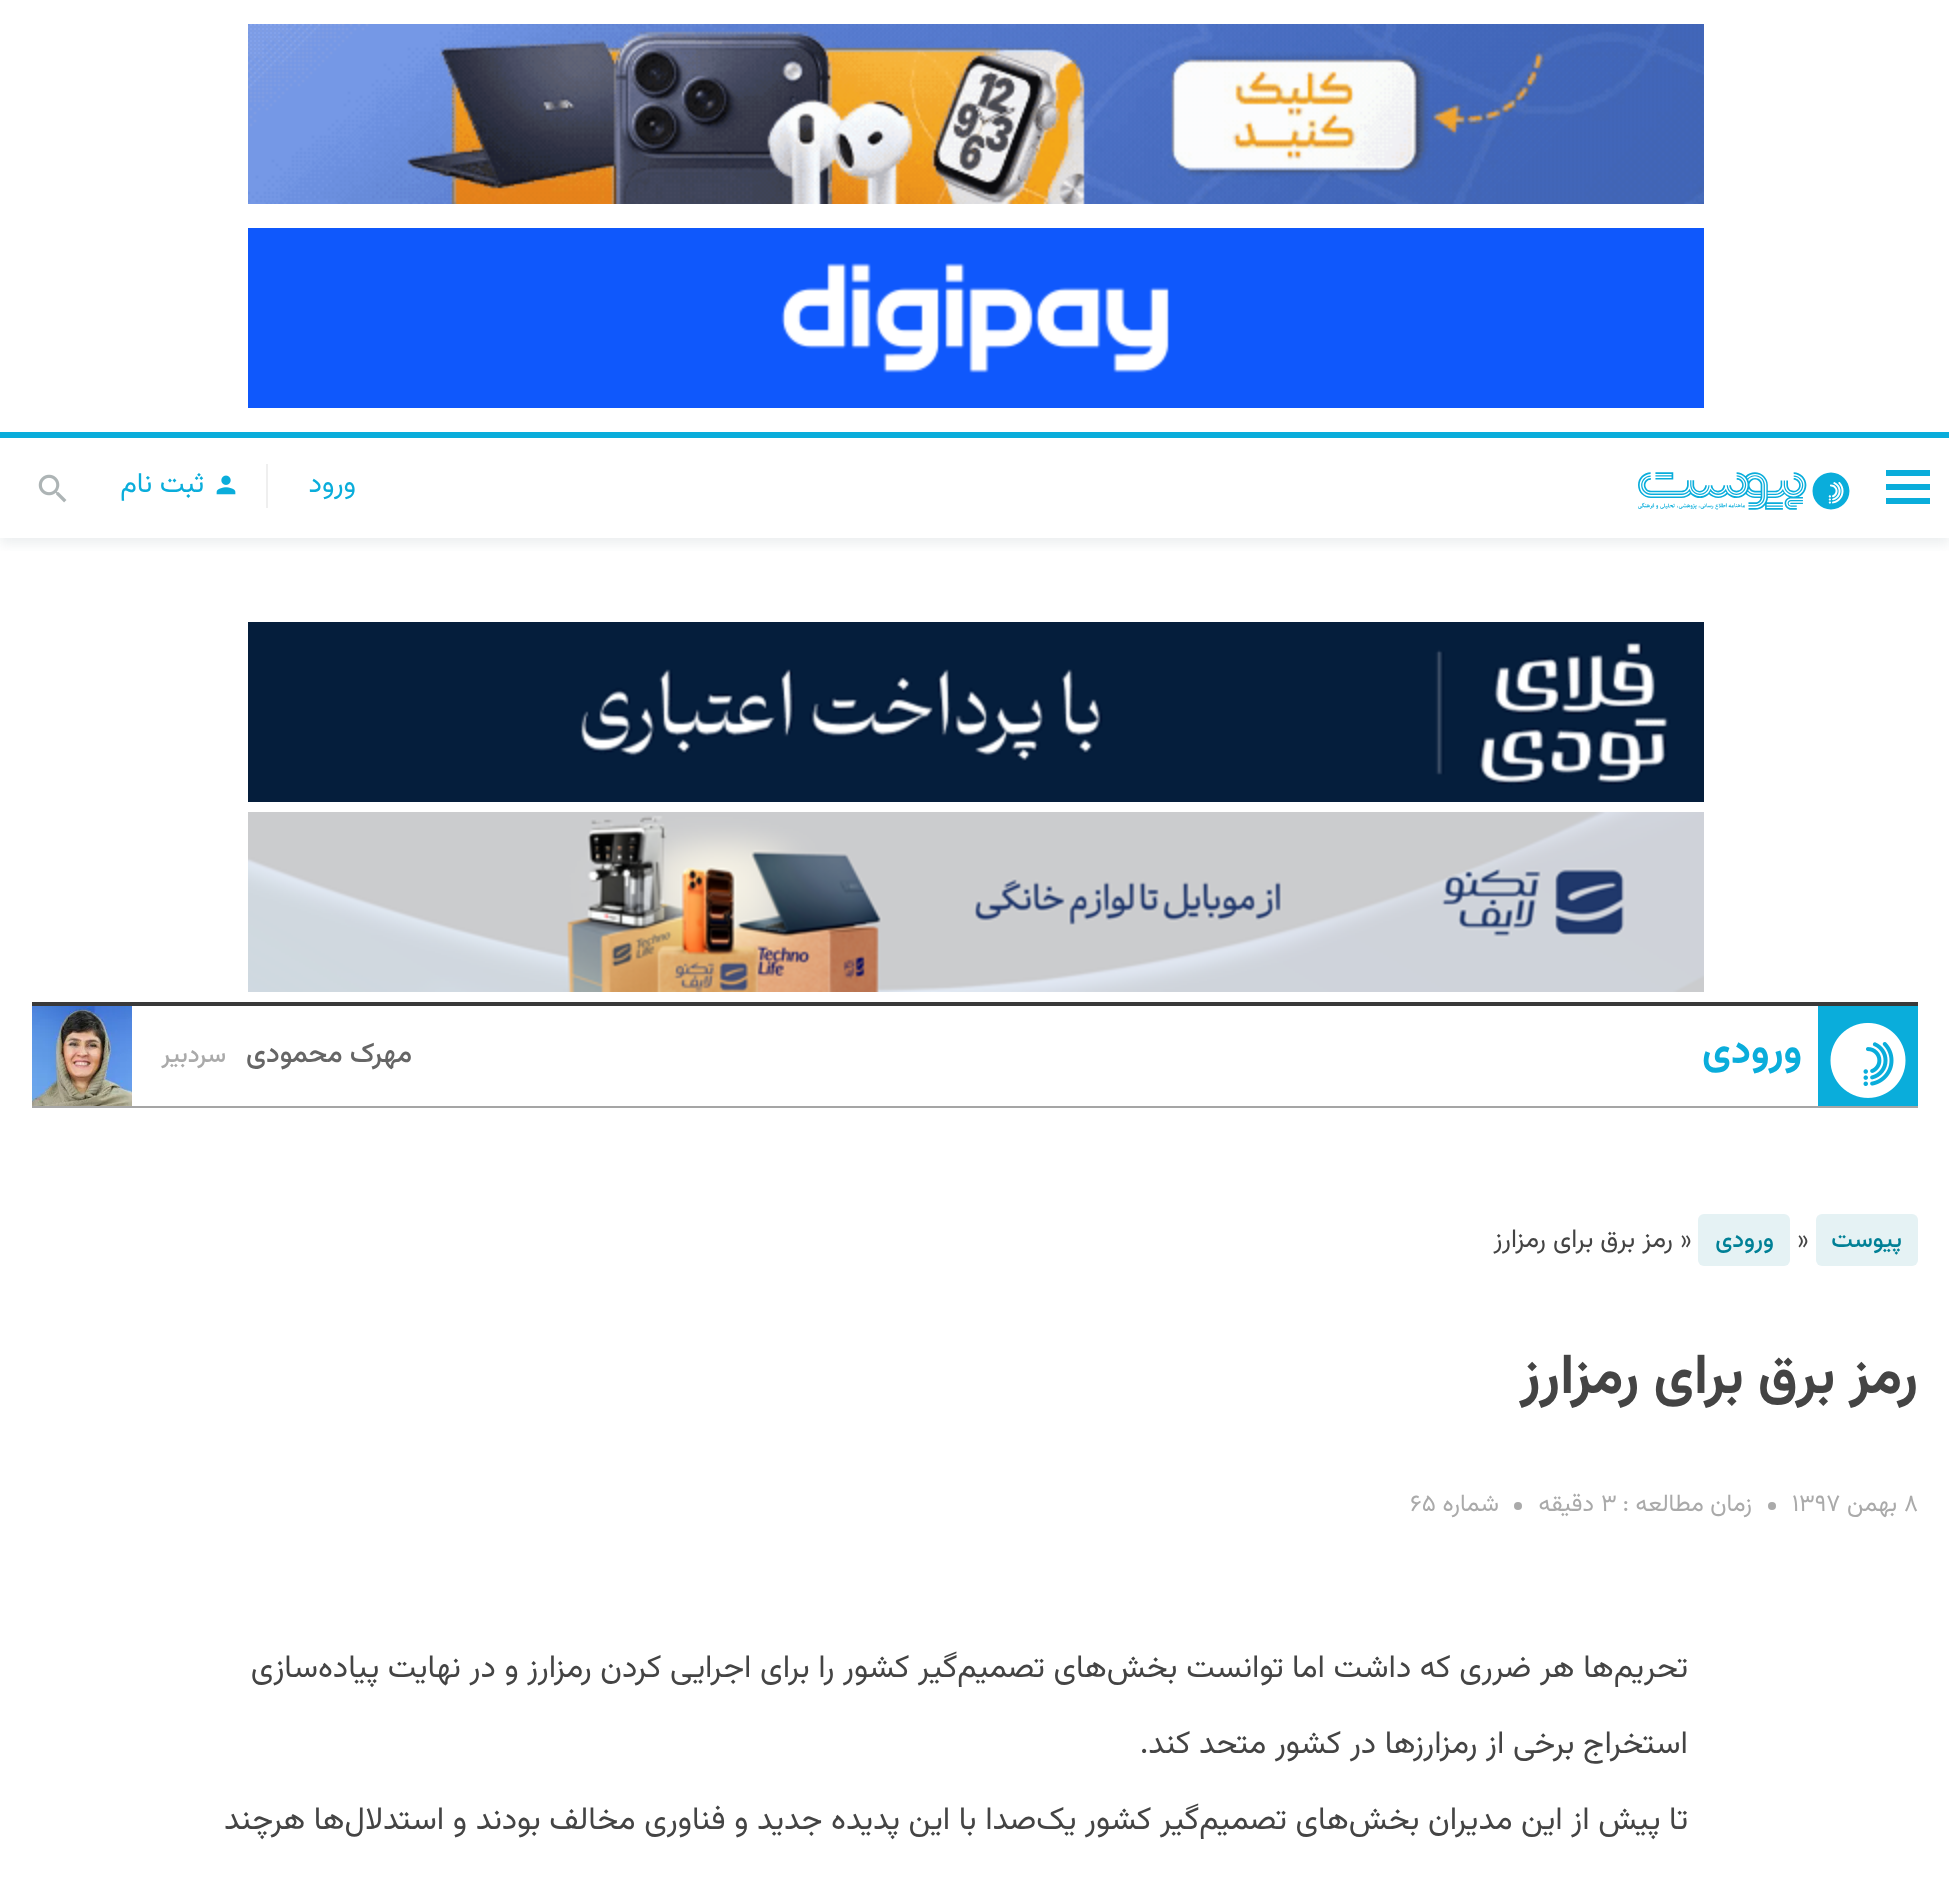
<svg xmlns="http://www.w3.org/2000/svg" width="1949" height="1886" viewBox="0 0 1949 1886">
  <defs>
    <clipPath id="clip1"><rect x="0" y="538" width="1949" height="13"/></clipPath>
  </defs>
  <rect width="100%" height="100%" fill="rgb(255,255,255)"/>
  <image x="248" y="24" width="1456" height="180" href="pic1.png"/>
  <image x="248" y="228" width="1456" height="180" href="pic2.png"/>
  <g clip-path="url(#clip1)">
    <rect x="0" y="444" width="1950" height="100" fill="rgba(127,147,157,0.15)" filter="blur(6px)"/>
  </g>
  <rect x="1886" y="484" width="44" height="6" fill="rgb(10,173,219)"/>
  <rect x="1886" y="470" width="44" height="6" fill="rgb(10,173,219)"/>
  <rect x="1886" y="498" width="44" height="6" fill="rgb(10,173,219)"/>
  <rect x="0" y="432" width="1949" height="6" fill="rgb(10,173,219)"/>
  <image x="1638" y="472" width="212" height="38" href="pic3.png"/>
  <text x="356" y="492" font-family="Vazirmatn" font-size="28" direction="rtl" fill="rgb(10,173,219)">ورود</text>
  <rect x="266" y="464" width="2" height="44" fill="rgb(239,239,239)"/>
  <image x="216" y="475" width="20" height="20" href="pic4.png"/>
  <text x="204" y="492" font-family="Vazirmatn" font-size="28" direction="rtl" fill="rgb(10,173,219)">ثبت نام</text>
  <image x="38" y="474" width="29" height="29" href="pic5.png"/>
  <image x="248" y="622" width="1456" height="180" href="pic6.png"/>
  <image x="248" y="812" width="1456" height="180" href="pic7.png"/>
  <rect x="32" y="1002" width="1886" height="4" fill="rgb(57,57,57)"/>
  <rect x="32" y="1106" width="1886" height="2" fill="rgb(165,165,165)"/>
  <rect x="1818" y="1006" width="100" height="100" fill="rgb(10,173,219)"/>
  <image x="1830" y="1022" width="76" height="76" href="pic8.png"/>
  <text x="1802" y="1063" font-family="Vazirmatn" font-size="40" font-weight="bold" direction="rtl" fill="rgb(10,173,219)">ورودی</text>
  <text x="412" y="1062" font-family="Vazirmatn" font-size="28" font-weight="500" direction="rtl" fill="rgb(102,102,102)">مهرک محمودی</text>
  <text x="226" y="1062" font-family="Vazirmatn" font-size="24" font-weight="500" direction="rtl" fill="rgb(170,170,170)">سردبیر</text>
  <image x="32" y="1006" width="100" height="100" href="pic9.png"/>
  <rect x="1816" y="1214" width="102" height="52" rx="6" fill="rgb(229,242,244)"/>
  <text x="1902" y="1247" font-family="Vazirmatn" font-size="24" font-weight="500" direction="rtl" fill="rgb(0,128,150)">پیوست</text>
  <text x="1797" y="1247" font-family="Vazirmatn" font-size="26" fill="rgb(68,68,68)">»</text>
  <rect x="1698" y="1214" width="92" height="52" rx="6" fill="rgb(229,242,244)"/>
  <text x="1774" y="1247" font-family="Vazirmatn" font-size="24" font-weight="500" direction="rtl" fill="rgb(0,128,150)">ورودی</text>
  <text x="1680" y="1247" font-family="Vazirmatn" font-size="26" fill="rgb(68,68,68)">»</text>
  <text x="1673" y="1247" font-family="Vazirmatn" font-size="26" direction="rtl" fill="rgb(68,68,68)">رمز برق برای رمزارز</text>
  <text x="1918" y="1393" font-family="Vazirmatn" font-size="56" font-weight="bold" direction="rtl" fill="rgb(68,68,68)">رمز برق برای رمزارز</text>
  <text x="1904" y="1511" font-family="Vazirmatn" font-size="24" fill="rgb(170,170,170)">۸</text>
  <text x="1897" y="1511" font-family="Vazirmatn" font-size="24" direction="rtl" fill="rgb(170,170,170)">بهمن</text>
  <text x="1792" y="1511" font-family="Vazirmatn" font-size="24" fill="rgb(170,170,170)">۱۳۹۷</text>
  <circle cx="1772" cy="1506" r="4" fill="rgb(170,170,170)"/>
  <text x="1752" y="1511" font-family="Vazirmatn" font-size="24" direction="rtl" fill="rgb(170,170,170)">زمان مطالعه :</text>
  <text x="1601" y="1511" font-family="Vazirmatn" font-size="24" fill="rgb(170,170,170)">۳</text>
  <text x="1594" y="1511" font-family="Vazirmatn" font-size="24" direction="rtl" fill="rgb(170,170,170)">دقیقه</text>
  <circle cx="1518" cy="1506" r="4" fill="rgb(170,170,170)"/>
  <text x="1499" y="1511" font-family="Vazirmatn" font-size="24" direction="rtl" fill="rgb(170,170,170)">شماره</text>
  <text x="1410" y="1511" font-family="Vazirmatn" font-size="24" fill="rgb(170,170,170)">۶۵</text>
  <g font-family="Vazirmatn" font-size="32" direction="rtl" fill="rgb(68,68,68)">
    <text x="1688" y="1677">تحریم‌ها هر ضرری که داشت اما توانست بخش‌های تصمیم‌گیر کشور را برای اجرایی کردن رمزارز و در نهایت پیاده‌سازی</text>
    <text x="1688" y="1753">استخراج برخی از رمزارزها در کشور متحد کند.</text>
    <text x="1688" y="1829">تا پیش از این مدیران بخش‌های تصمیم‌گیر کشور یک‌صدا با این پدیده جدید و فناوری مخالف بودند و استدلال‌ها هرچند</text>
  </g>
</svg>
